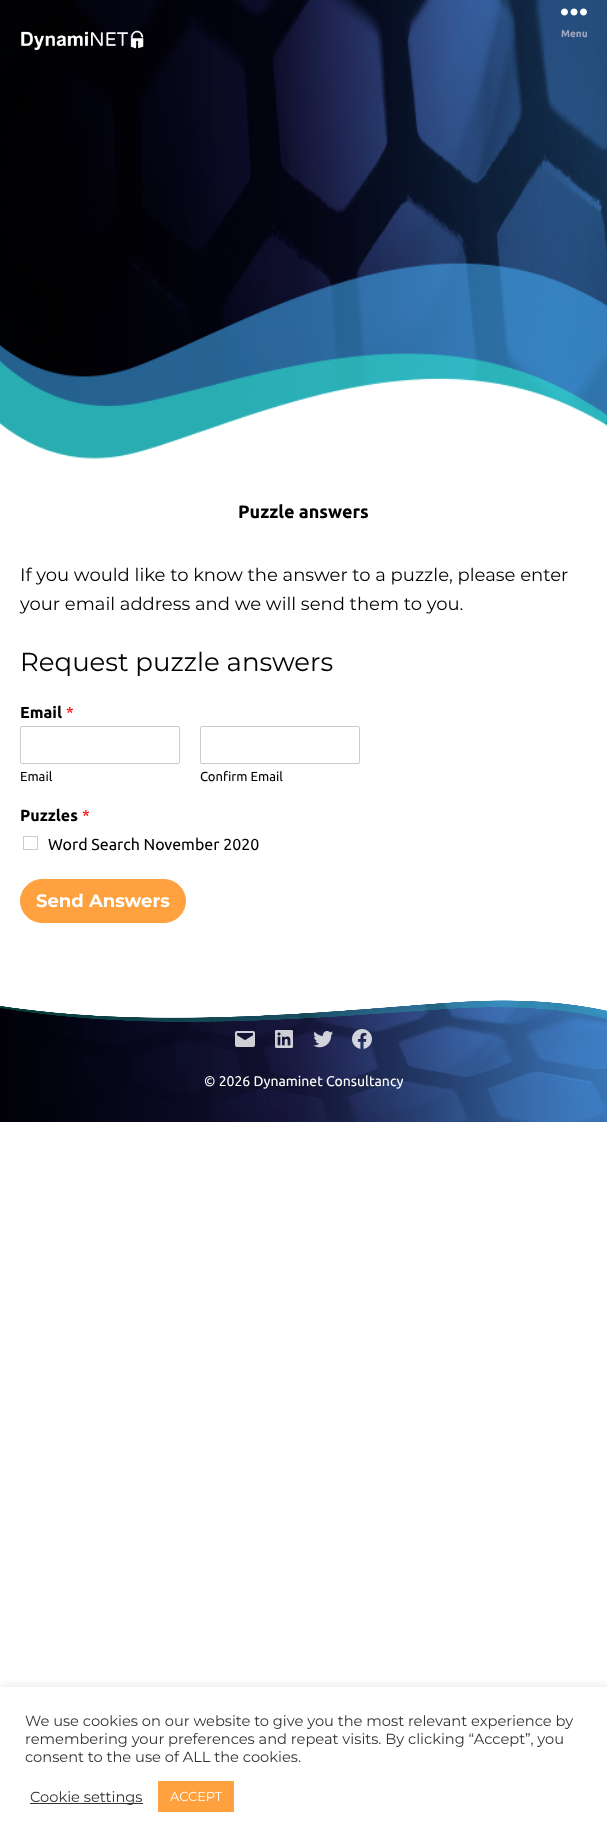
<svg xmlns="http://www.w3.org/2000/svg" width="607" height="1842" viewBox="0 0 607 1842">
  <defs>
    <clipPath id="clip1"><rect x="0" y="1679" width="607" height="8"/></clipPath>
  </defs>
  <rect width="100%" height="100%" fill="rgb(255,255,255)"/>
  <image x="0" y="0" width="607" height="459" href="pic1.png"/>
  <image x="21" y="30" width="123" height="21" href="pic2.png"/>
  <image x="561" y="8" width="26" height="8" href="pic3.png"/>
  <text x="561" y="37" font-family="Ubuntu" font-size="10" font-weight="bold" fill="rgb(163,166,193)">Menu</text>
  <text x="238" y="518" font-family="Ubuntu" font-size="18" font-weight="bold" fill="rgb(0,0,0)">Puzzle answers</text>
  <g font-family="Montserrat" font-size="18" fill="rgb(0,0,0)">
    <text>
      <tspan x="20" y="581">If you would like to know the answer to a puzzle, please enter</tspan>
      <tspan x="20" y="610">your email address and we will send them to you.</tspan>
    </text>
  </g>
  <text x="20" y="671" font-family="Montserrat" font-size="26" fill="rgb(0,0,0)">Request puzzle answers</text>
  <text x="20" y="718" font-family="Ubuntu" font-size="16" font-weight="bold" fill="rgb(0,0,0)">Email</text>
  <text x="66" y="718" font-family="Ubuntu" font-size="16" fill="rgb(255,0,0)">*</text>
  <rect x="20.5" y="726.5" width="159" height="37" rx="1.5" fill="none" stroke="rgb(204,204,204)"/>
  <text x="20" y="781" font-family="Ubuntu" font-size="13" fill="rgb(0,0,0)">Email</text>
  <rect x="200.5" y="726.5" width="159" height="37" rx="1.5" fill="none" stroke="rgb(204,204,204)"/>
  <text x="200" y="781" font-family="Ubuntu" font-size="13" fill="rgb(0,0,0)">Confirm Email</text>
  <text x="20" y="821" font-family="Ubuntu" font-size="16" font-weight="bold" fill="rgb(0,0,0)">Puzzles</text>
  <text x="82" y="821" font-family="Ubuntu" font-size="16" fill="rgb(255,0,0)">*</text>
  <rect x="23.5" y="836.5" width="14" height="13" fill="none" stroke="rgb(204,204,204)"/>
  <text x="48" y="850" font-family="Ubuntu" font-size="16" fill="rgb(0,0,0)">Word Search November 2020</text>
  <rect x="20.5" y="879.5" width="165" height="43" rx="21.5" fill="rgb(255,161,63)" stroke="rgb(255,161,63)"/>
  <text x="36" y="907" font-family="Montserrat" font-size="18" font-weight="bold" fill="rgb(255,255,255)">Send Answers</text>
  <image x="0" y="1000" width="607" height="122" href="pic4.png"/>
  <image x="235" y="1031" width="20" height="16" href="pic5.png"/>
  <image x="275" y="1030" width="18" height="18" href="pic6.png"/>
  <image x="313" y="1031" width="20" height="17" href="pic7.png"/>
  <image x="352" y="1029" width="20" height="20" href="pic8.png"/>
  <text x="204" y="1086" font-family="Ubuntu" font-size="14" fill="rgb(255,255,255)">© 2026 Dynaminet Consultancy</text>
  <g clip-path="url(#clip1)">
    <rect x="0" y="1686" width="607" height="155" fill="rgba(172,171,171,0.3)" filter="blur(5px)"/>
  </g>
  <g font-family="Montserrat" font-size="14.65" fill="rgb(51,51,51)">
    <text>
      <tspan x="25" y="1726">We use cookies on our website to give you the most relevant experience by</tspan>
      <tspan x="25" y="1744">remembering your preferences and repeat visits. By clicking “Accept”, you</tspan>
      <tspan x="25" y="1762">consent to the use of ALL the cookies.</tspan>
    </text>
  </g>
  <rect x="30" y="1803" width="113" height="1" fill="rgb(51,51,51)"/>
  <text x="30" y="1802" font-family="Montserrat" font-size="14.65" fill="rgb(51,51,51)">Cookie settings</text>
  <rect x="158" y="1781" width="76" height="31" fill="rgb(255,161,63)"/>
  <text x="170" y="1801" font-family="Montserrat" font-size="13" fill="rgb(255,255,255)">ACCEPT</text>
</svg>
